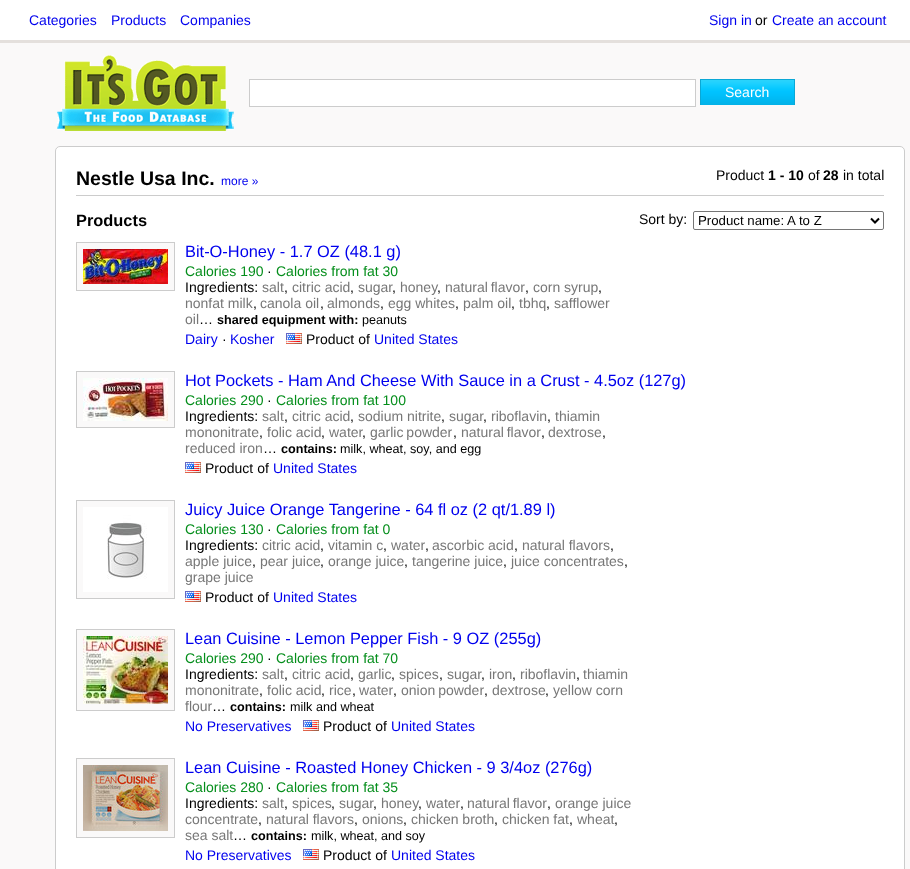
<svg xmlns="http://www.w3.org/2000/svg" width="910" height="869" viewBox="0 0 910 869">
  <rect width="100%" height="100%" fill="rgb(250,249,249)"/>
  <rect x="0" y="0" width="910" height="40" fill="rgb(255,255,255)"/>
  <rect x="0" y="40" width="910" height="3" fill="rgb(228,224,221)"/>
  <g font-family="Liberation Sans" font-size="14" fill="rgb(0,0,238)">
    <text x="29" y="25">Categories</text>
    <text x="111" y="25">Products</text>
    <text x="180" y="25">Companies</text>
    <text x="709" y="25">Sign in</text>
  </g>
  <text x="755" y="25" font-family="Liberation Sans" font-size="14" fill="rgb(0,0,0)">or</text>
  <text x="772" y="25" font-family="Liberation Sans" font-size="14" fill="rgb(0,0,238)">Create an account</text>
  <image x="57" y="55" width="177" height="76" href="pic1.png"/>
  <rect x="249.5" y="79.5" width="446" height="27" fill="rgb(255,255,255)" stroke="rgb(204,204,204)"/>
  <image x="700" y="79" width="95" height="26" href="pic2.png"/>
  <text x="725" y="97" font-family="Liberation Sans" font-size="14" fill="rgb(255,255,255)">Search</text>
  <rect x="55.5" y="146.5" width="849" height="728" rx="4.5" fill="rgb(255,255,255)" stroke="rgb(204,204,204)"/>
  <rect x="76" y="195" width="808" height="1" fill="rgb(204,204,204)"/>
  <text x="76" y="185" font-family="Liberation Sans" font-size="19.5" font-weight="bold" fill="rgb(0,0,0)">Nestle Usa Inc.</text>
  <text x="221" y="185" font-family="Liberation Sans" font-size="12" fill="rgb(0,0,238)">more »</text>
  <text x="716" y="180" font-family="Liberation Sans" font-size="14" fill="rgb(0,0,0)">Product</text>
  <text x="768" y="180" font-family="Liberation Sans" font-size="14" font-weight="bold" fill="rgb(0,0,0)">1 - 10</text>
  <text x="808" y="180" font-family="Liberation Sans" font-size="14" fill="rgb(0,0,0)">of</text>
  <text x="823" y="180" font-family="Liberation Sans" font-size="14" font-weight="bold" fill="rgb(0,0,0)">28</text>
  <text x="843" y="180" font-family="Liberation Sans" font-size="14" fill="rgb(0,0,0)">in total</text>
  <text x="76" y="226" font-family="Liberation Sans" font-size="16.4" font-weight="bold" fill="rgb(0,0,0)">Products</text>
  <text x="639" y="224" font-family="Liberation Sans" font-size="14" fill="rgb(0,0,0)">Sort by:</text>
  <rect x="693.5" y="211.5" width="190" height="18" rx="1.5" fill="none" stroke="rgb(118,118,118)"/>
  <path d="M871 218.5L875 222.5L879 218.5" fill="none" stroke="rgb(0,0,0)" stroke-width="2"/>
  <text x="698" y="225" font-family="Liberation Sans" font-size="13.25" fill="rgb(0,0,0)">Product name: A to Z</text>
  <rect x="76.5" y="242.5" width="98" height="48" fill="rgb(250,249,249)" stroke="rgb(204,204,204)"/>
  <image x="83" y="249" width="85" height="35" href="pic3.png"/>
  <text x="185" y="257" font-family="Liberation Sans" font-size="16.4" fill="rgb(0,0,238)">Bit-O-Honey - 1.7 OZ (48.1 g)</text>
  <text x="185" y="276" font-family="Liberation Sans" font-size="14" fill="rgb(4,142,27)">Calories 190</text>
  <text x="267" y="276" font-family="Liberation Sans" font-size="14" fill="rgb(0,0,0)">·</text>
  <text x="276" y="276" font-family="Liberation Sans" font-size="14" fill="rgb(4,142,27)">Calories from fat 30</text>
  <text x="185" y="292" font-family="Liberation Sans" font-size="14" fill="rgb(0,0,0)">Ingredients:</text>
  <text x="262" y="292" font-family="Liberation Sans" font-size="14" fill="rgb(119,119,119)">salt</text>
  <text x="284" y="292" font-family="Liberation Sans" font-size="14" fill="rgb(0,0,0)">,</text>
  <text x="292" y="292" font-family="Liberation Sans" font-size="14" fill="rgb(119,119,119)">citric acid</text>
  <text x="350" y="292" font-family="Liberation Sans" font-size="14" fill="rgb(0,0,0)">,</text>
  <text x="358" y="292" font-family="Liberation Sans" font-size="14" fill="rgb(119,119,119)">sugar</text>
  <text x="392" y="292" font-family="Liberation Sans" font-size="14" fill="rgb(0,0,0)">,</text>
  <text x="400" y="292" font-family="Liberation Sans" font-size="14" fill="rgb(119,119,119)">honey</text>
  <text x="437" y="292" font-family="Liberation Sans" font-size="14" fill="rgb(0,0,0)">,</text>
  <text x="445" y="292" word-spacing="-1" font-family="Liberation Sans" font-size="14" fill="rgb(119,119,119)">natural flavor</text>
  <text x="525" y="292" font-family="Liberation Sans" font-size="14" fill="rgb(0,0,0)">,</text>
  <text x="533" y="292" font-family="Liberation Sans" font-size="14" fill="rgb(119,119,119)">corn syrup</text>
  <text x="598" y="292" font-family="Liberation Sans" font-size="14" fill="rgb(0,0,0)">,</text>
  <text x="185" y="308" font-family="Liberation Sans" font-size="14" fill="rgb(119,119,119)">nonfat milk</text>
  <text x="253" y="308" font-family="Liberation Sans" font-size="14" fill="rgb(0,0,0)">,</text>
  <text x="260" y="308" font-family="Liberation Sans" font-size="14" fill="rgb(119,119,119)">canola oil</text>
  <text x="320" y="308" font-family="Liberation Sans" font-size="14" fill="rgb(0,0,0)">,</text>
  <text x="327" y="308" font-family="Liberation Sans" font-size="14" fill="rgb(119,119,119)">almonds</text>
  <text x="380" y="308" font-family="Liberation Sans" font-size="14" fill="rgb(0,0,0)">,</text>
  <text x="388" y="308" font-family="Liberation Sans" font-size="14" fill="rgb(119,119,119)">egg whites</text>
  <text x="455" y="308" font-family="Liberation Sans" font-size="14" fill="rgb(0,0,0)">,</text>
  <text x="463" y="308" font-family="Liberation Sans" font-size="14" fill="rgb(119,119,119)">palm oil</text>
  <text x="511" y="308" font-family="Liberation Sans" font-size="14" fill="rgb(0,0,0)">,</text>
  <text x="519" y="308" font-family="Liberation Sans" font-size="14" fill="rgb(119,119,119)">tbhq</text>
  <text x="546" y="308" font-family="Liberation Sans" font-size="14" fill="rgb(0,0,0)">,</text>
  <g font-family="Liberation Sans" font-size="14" fill="rgb(119,119,119)">
    <text x="554" y="308">safflower</text>
    <text x="185" y="324">oil</text>
  </g>
  <text x="199" y="324" font-family="Liberation Sans" font-size="14" fill="rgb(0,0,0)">…</text>
  <text x="217" y="324" font-family="Liberation Sans" font-size="12.6" font-weight="bold" fill="rgb(0,0,0)">shared equipment with:</text>
  <text x="362" y="324" font-family="Liberation Sans" font-size="12.6" fill="rgb(0,0,0)">peanuts</text>
  <text x="185" y="344" font-family="Liberation Sans" font-size="14" fill="rgb(0,0,238)">Dairy</text>
  <text x="222" y="344" font-family="Liberation Sans" font-size="14" fill="rgb(0,0,0)">·</text>
  <text x="230" y="344" font-family="Liberation Sans" font-size="14" fill="rgb(0,0,238)">Kosher</text>
  <image x="286" y="333" width="16" height="11" href="pic4.png"/>
  <text x="306" y="344" font-family="Liberation Sans" font-size="14" fill="rgb(0,0,0)">Product of</text>
  <text x="374" y="344" font-family="Liberation Sans" font-size="14" fill="rgb(0,0,238)">United States</text>
  <rect x="76.5" y="371.5" width="98" height="56" fill="rgb(250,249,249)" stroke="rgb(204,204,204)"/>
  <image x="83" y="378" width="85" height="43" href="pic5.png"/>
  <text x="185" y="386" font-family="Liberation Sans" font-size="16.4" fill="rgb(0,0,238)">Hot Pockets - Ham And Cheese With Sauce in a Crust - 4.5oz (127g)</text>
  <text x="185" y="405" font-family="Liberation Sans" font-size="14" fill="rgb(4,142,27)">Calories 290</text>
  <text x="267" y="405" font-family="Liberation Sans" font-size="14" fill="rgb(0,0,0)">·</text>
  <text x="276" y="405" font-family="Liberation Sans" font-size="14" fill="rgb(4,142,27)">Calories from fat 100</text>
  <text x="185" y="421" font-family="Liberation Sans" font-size="14" fill="rgb(0,0,0)">Ingredients:</text>
  <text x="262" y="421" font-family="Liberation Sans" font-size="14" fill="rgb(119,119,119)">salt</text>
  <text x="284" y="421" font-family="Liberation Sans" font-size="14" fill="rgb(0,0,0)">,</text>
  <text x="292" y="421" font-family="Liberation Sans" font-size="14" fill="rgb(119,119,119)">citric acid</text>
  <text x="350" y="421" font-family="Liberation Sans" font-size="14" fill="rgb(0,0,0)">,</text>
  <text x="358" y="421" font-family="Liberation Sans" font-size="14" fill="rgb(119,119,119)">sodium nitrite</text>
  <text x="441" y="421" font-family="Liberation Sans" font-size="14" fill="rgb(0,0,0)">,</text>
  <text x="449" y="421" font-family="Liberation Sans" font-size="14" fill="rgb(119,119,119)">sugar</text>
  <text x="483" y="421" font-family="Liberation Sans" font-size="14" fill="rgb(0,0,0)">,</text>
  <text x="491" y="421" font-family="Liberation Sans" font-size="14" fill="rgb(119,119,119)">riboflavin</text>
  <text x="547" y="421" font-family="Liberation Sans" font-size="14" fill="rgb(0,0,0)">,</text>
  <g font-family="Liberation Sans" font-size="14" fill="rgb(119,119,119)">
    <text x="555" y="421">thiamin</text>
    <text x="185" y="437">mononitrate</text>
  </g>
  <text x="259" y="437" font-family="Liberation Sans" font-size="14" fill="rgb(0,0,0)">,</text>
  <text x="267" y="437" font-family="Liberation Sans" font-size="14" fill="rgb(119,119,119)">folic acid</text>
  <text x="321" y="437" font-family="Liberation Sans" font-size="14" fill="rgb(0,0,0)">,</text>
  <text x="329" y="437" font-family="Liberation Sans" font-size="14" fill="rgb(119,119,119)">water</text>
  <text x="362" y="437" font-family="Liberation Sans" font-size="14" fill="rgb(0,0,0)">,</text>
  <text x="370" y="437" word-spacing="-1" font-family="Liberation Sans" font-size="14" fill="rgb(119,119,119)">garlic powder</text>
  <text x="453" y="437" font-family="Liberation Sans" font-size="14" fill="rgb(0,0,0)">,</text>
  <text x="461" y="437" word-spacing="-1" font-family="Liberation Sans" font-size="14" fill="rgb(119,119,119)">natural flavor</text>
  <text x="541" y="437" font-family="Liberation Sans" font-size="14" fill="rgb(0,0,0)">,</text>
  <text x="548" y="437" font-family="Liberation Sans" font-size="14" fill="rgb(119,119,119)">dextrose</text>
  <text x="602" y="437" font-family="Liberation Sans" font-size="14" fill="rgb(0,0,0)">,</text>
  <text x="185" y="453" font-family="Liberation Sans" font-size="14" fill="rgb(119,119,119)">reduced iron</text>
  <text x="263" y="453" font-family="Liberation Sans" font-size="14" fill="rgb(0,0,0)">…</text>
  <text x="281" y="453" font-family="Liberation Sans" font-size="12.6" font-weight="bold" fill="rgb(0,0,0)">contains:</text>
  <text x="340" y="453" font-family="Liberation Sans" font-size="12.6" fill="rgb(0,0,0)">milk, wheat, soy, and egg</text>
  <image x="185" y="462" width="16" height="11" href="pic4.png"/>
  <text x="205" y="473" font-family="Liberation Sans" font-size="14" fill="rgb(0,0,0)">Product of</text>
  <text x="273" y="473" font-family="Liberation Sans" font-size="14" fill="rgb(0,0,238)">United States</text>
  <rect x="76.5" y="500.5" width="98" height="98" fill="rgb(250,249,249)" stroke="rgb(204,204,204)"/>
  <image x="83" y="507" width="85" height="85" href="pic6.png"/>
  <text x="185" y="515" font-family="Liberation Sans" font-size="16.4" fill="rgb(0,0,238)">Juicy Juice Orange Tangerine - 64 fl oz (2 qt/1.89 l)</text>
  <text x="185" y="534" font-family="Liberation Sans" font-size="14" fill="rgb(4,142,27)">Calories 130</text>
  <text x="267" y="534" font-family="Liberation Sans" font-size="14" fill="rgb(0,0,0)">·</text>
  <text x="276" y="534" font-family="Liberation Sans" font-size="14" fill="rgb(4,142,27)">Calories from fat 0</text>
  <text x="185" y="550" font-family="Liberation Sans" font-size="14" fill="rgb(0,0,0)">Ingredients:</text>
  <text x="262" y="550" font-family="Liberation Sans" font-size="14" fill="rgb(119,119,119)">citric acid</text>
  <text x="320" y="550" font-family="Liberation Sans" font-size="14" fill="rgb(0,0,0)">,</text>
  <text x="328" y="550" font-family="Liberation Sans" font-size="14" fill="rgb(119,119,119)">vitamin c</text>
  <text x="383" y="550" font-family="Liberation Sans" font-size="14" fill="rgb(0,0,0)">,</text>
  <text x="391" y="550" font-family="Liberation Sans" font-size="14" fill="rgb(119,119,119)">water</text>
  <text x="425" y="550" font-family="Liberation Sans" font-size="14" fill="rgb(0,0,0)">,</text>
  <text x="432" y="550" font-family="Liberation Sans" font-size="14" fill="rgb(119,119,119)">ascorbic acid</text>
  <text x="514" y="550" font-family="Liberation Sans" font-size="14" fill="rgb(0,0,0)">,</text>
  <text x="522" y="550" font-family="Liberation Sans" font-size="14" fill="rgb(119,119,119)">natural flavors</text>
  <text x="610" y="550" font-family="Liberation Sans" font-size="14" fill="rgb(0,0,0)">,</text>
  <text x="185" y="566" font-family="Liberation Sans" font-size="14" fill="rgb(119,119,119)">apple juice</text>
  <text x="252" y="566" font-family="Liberation Sans" font-size="14" fill="rgb(0,0,0)">,</text>
  <text x="260" y="566" font-family="Liberation Sans" font-size="14" fill="rgb(119,119,119)">pear juice</text>
  <text x="320" y="566" font-family="Liberation Sans" font-size="14" fill="rgb(0,0,0)">,</text>
  <text x="328" y="566" font-family="Liberation Sans" font-size="14" fill="rgb(119,119,119)">orange juice</text>
  <text x="404" y="566" font-family="Liberation Sans" font-size="14" fill="rgb(0,0,0)">,</text>
  <text x="412" y="566" font-family="Liberation Sans" font-size="14" fill="rgb(119,119,119)">tangerine juice</text>
  <text x="503" y="566" font-family="Liberation Sans" font-size="14" fill="rgb(0,0,0)">,</text>
  <text x="511" y="566" font-family="Liberation Sans" font-size="14" fill="rgb(119,119,119)">juice concentrates</text>
  <text x="624" y="566" font-family="Liberation Sans" font-size="14" fill="rgb(0,0,0)">,</text>
  <text x="185" y="582" font-family="Liberation Sans" font-size="14" fill="rgb(119,119,119)">grape juice</text>
  <image x="185" y="591" width="16" height="11" href="pic4.png"/>
  <text x="205" y="602" font-family="Liberation Sans" font-size="14" fill="rgb(0,0,0)">Product of</text>
  <text x="273" y="602" font-family="Liberation Sans" font-size="14" fill="rgb(0,0,238)">United States</text>
  <rect x="76.5" y="629.5" width="98" height="81" fill="rgb(250,249,249)" stroke="rgb(204,204,204)"/>
  <image x="83" y="636" width="85" height="68" href="pic7.png"/>
  <text x="185" y="644" font-family="Liberation Sans" font-size="16.4" fill="rgb(0,0,238)">Lean Cuisine - Lemon Pepper Fish - 9 OZ (255g)</text>
  <text x="185" y="663" font-family="Liberation Sans" font-size="14" fill="rgb(4,142,27)">Calories 290</text>
  <text x="267" y="663" font-family="Liberation Sans" font-size="14" fill="rgb(0,0,0)">·</text>
  <text x="276" y="663" font-family="Liberation Sans" font-size="14" fill="rgb(4,142,27)">Calories from fat 70</text>
  <text x="185" y="679" font-family="Liberation Sans" font-size="14" fill="rgb(0,0,0)">Ingredients:</text>
  <text x="262" y="679" font-family="Liberation Sans" font-size="14" fill="rgb(119,119,119)">salt</text>
  <text x="284" y="679" font-family="Liberation Sans" font-size="14" fill="rgb(0,0,0)">,</text>
  <text x="292" y="679" font-family="Liberation Sans" font-size="14" fill="rgb(119,119,119)">citric acid</text>
  <text x="350" y="679" font-family="Liberation Sans" font-size="14" fill="rgb(0,0,0)">,</text>
  <text x="358" y="679" font-family="Liberation Sans" font-size="14" fill="rgb(119,119,119)">garlic</text>
  <text x="391" y="679" font-family="Liberation Sans" font-size="14" fill="rgb(0,0,0)">,</text>
  <text x="399" y="679" font-family="Liberation Sans" font-size="14" fill="rgb(119,119,119)">spices</text>
  <text x="439" y="679" font-family="Liberation Sans" font-size="14" fill="rgb(0,0,0)">,</text>
  <text x="447" y="679" font-family="Liberation Sans" font-size="14" fill="rgb(119,119,119)">sugar</text>
  <text x="481" y="679" font-family="Liberation Sans" font-size="14" fill="rgb(0,0,0)">,</text>
  <text x="489" y="679" font-family="Liberation Sans" font-size="14" fill="rgb(119,119,119)">iron</text>
  <text x="512" y="679" font-family="Liberation Sans" font-size="14" fill="rgb(0,0,0)">,</text>
  <text x="520" y="679" font-family="Liberation Sans" font-size="14" fill="rgb(119,119,119)">riboflavin</text>
  <text x="576" y="679" font-family="Liberation Sans" font-size="14" fill="rgb(0,0,0)">,</text>
  <g font-family="Liberation Sans" font-size="14" fill="rgb(119,119,119)">
    <text x="583" y="679">thiamin</text>
    <text x="185" y="695">mononitrate</text>
  </g>
  <text x="259" y="695" font-family="Liberation Sans" font-size="14" fill="rgb(0,0,0)">,</text>
  <text x="267" y="695" font-family="Liberation Sans" font-size="14" fill="rgb(119,119,119)">folic acid</text>
  <text x="321" y="695" font-family="Liberation Sans" font-size="14" fill="rgb(0,0,0)">,</text>
  <text x="329" y="695" font-family="Liberation Sans" font-size="14" fill="rgb(119,119,119)">rice</text>
  <text x="352" y="695" font-family="Liberation Sans" font-size="14" fill="rgb(0,0,0)">,</text>
  <text x="359" y="695" font-family="Liberation Sans" font-size="14" fill="rgb(119,119,119)">water</text>
  <text x="393" y="695" font-family="Liberation Sans" font-size="14" fill="rgb(0,0,0)">,</text>
  <text x="401" y="695" word-spacing="-1" font-family="Liberation Sans" font-size="14" fill="rgb(119,119,119)">onion powder</text>
  <text x="484" y="695" font-family="Liberation Sans" font-size="14" fill="rgb(0,0,0)">,</text>
  <text x="492" y="695" font-family="Liberation Sans" font-size="14" fill="rgb(119,119,119)">dextrose</text>
  <text x="545" y="695" font-family="Liberation Sans" font-size="14" fill="rgb(0,0,0)">,</text>
  <g font-family="Liberation Sans" font-size="14" fill="rgb(119,119,119)">
    <text x="553" y="695">yellow corn</text>
    <text x="185" y="711">flour</text>
  </g>
  <text x="212" y="711" font-family="Liberation Sans" font-size="14" fill="rgb(0,0,0)">…</text>
  <text x="230" y="711" font-family="Liberation Sans" font-size="12.6" font-weight="bold" fill="rgb(0,0,0)">contains:</text>
  <text x="290" y="711" font-family="Liberation Sans" font-size="12.6" fill="rgb(0,0,0)">milk and wheat</text>
  <text x="185" y="731" font-family="Liberation Sans" font-size="14" fill="rgb(0,0,238)">No Preservatives</text>
  <image x="303" y="720" width="16" height="11" href="pic4.png"/>
  <text x="323" y="731" font-family="Liberation Sans" font-size="14" fill="rgb(0,0,0)">Product of</text>
  <text x="391" y="731" font-family="Liberation Sans" font-size="14" fill="rgb(0,0,238)">United States</text>
  <rect x="76.5" y="758.5" width="98" height="79" fill="rgb(250,249,249)" stroke="rgb(204,204,204)"/>
  <image x="83" y="765" width="85" height="66" href="pic8.png"/>
  <text x="185" y="773" font-family="Liberation Sans" font-size="16.4" fill="rgb(0,0,238)">Lean Cuisine - Roasted Honey Chicken - 9 3/4oz (276g)</text>
  <text x="185" y="792" font-family="Liberation Sans" font-size="14" fill="rgb(4,142,27)">Calories 280</text>
  <text x="267" y="792" font-family="Liberation Sans" font-size="14" fill="rgb(0,0,0)">·</text>
  <text x="276" y="792" font-family="Liberation Sans" font-size="14" fill="rgb(4,142,27)">Calories from fat 35</text>
  <text x="185" y="808" font-family="Liberation Sans" font-size="14" fill="rgb(0,0,0)">Ingredients:</text>
  <text x="262" y="808" font-family="Liberation Sans" font-size="14" fill="rgb(119,119,119)">salt</text>
  <text x="284" y="808" font-family="Liberation Sans" font-size="14" fill="rgb(0,0,0)">,</text>
  <text x="292" y="808" font-family="Liberation Sans" font-size="14" fill="rgb(119,119,119)">spices</text>
  <text x="331" y="808" font-family="Liberation Sans" font-size="14" fill="rgb(0,0,0)">,</text>
  <text x="339" y="808" font-family="Liberation Sans" font-size="14" fill="rgb(119,119,119)">sugar</text>
  <text x="373" y="808" font-family="Liberation Sans" font-size="14" fill="rgb(0,0,0)">,</text>
  <g font-family="Liberation Sans" font-size="14" fill="rgb(119,119,119)">
    <text x="381" y="808">honey</text>
    <text x="426" y="808">water</text>
    <text x="467" y="808" word-spacing="-1">natural flavor</text>
    <text x="555" y="808">orange juice</text>
  </g>
  <g font-family="Liberation Sans" font-size="14" fill="rgb(0,0,0)">
    <text x="418" y="808">,</text>
    <text x="460" y="808">,</text>
    <text x="547" y="808">,</text>
  </g>
  <text x="185" y="824" font-family="Liberation Sans" font-size="14" fill="rgb(119,119,119)">concentrate</text>
  <text x="258" y="824" font-family="Liberation Sans" font-size="14" fill="rgb(0,0,0)">,</text>
  <text x="266" y="824" font-family="Liberation Sans" font-size="14" fill="rgb(119,119,119)">natural flavors</text>
  <text x="354" y="824" font-family="Liberation Sans" font-size="14" fill="rgb(0,0,0)">,</text>
  <text x="362" y="824" font-family="Liberation Sans" font-size="14" fill="rgb(119,119,119)">onions</text>
  <text x="403" y="824" font-family="Liberation Sans" font-size="14" fill="rgb(0,0,0)">,</text>
  <text x="411" y="824" font-family="Liberation Sans" font-size="14" fill="rgb(119,119,119)">chicken broth</text>
  <text x="494" y="824" font-family="Liberation Sans" font-size="14" fill="rgb(0,0,0)">,</text>
  <text x="502" y="824" font-family="Liberation Sans" font-size="14" fill="rgb(119,119,119)">chicken fat</text>
  <text x="569" y="824" font-family="Liberation Sans" font-size="14" fill="rgb(0,0,0)">,</text>
  <text x="577" y="824" font-family="Liberation Sans" font-size="14" fill="rgb(119,119,119)">wheat</text>
  <text x="614" y="824" font-family="Liberation Sans" font-size="14" fill="rgb(0,0,0)">,</text>
  <text x="185" y="840" font-family="Liberation Sans" font-size="14" fill="rgb(119,119,119)">sea salt</text>
  <text x="233" y="840" font-family="Liberation Sans" font-size="14" fill="rgb(0,0,0)">…</text>
  <text x="251" y="840" font-family="Liberation Sans" font-size="12.6" font-weight="bold" fill="rgb(0,0,0)">contains:</text>
  <text x="311" y="840" font-family="Liberation Sans" font-size="12.6" fill="rgb(0,0,0)">milk, wheat, and soy</text>
  <text x="185" y="860" font-family="Liberation Sans" font-size="14" fill="rgb(0,0,238)">No Preservatives</text>
  <image x="303" y="849" width="16" height="11" href="pic4.png"/>
  <text x="323" y="860" font-family="Liberation Sans" font-size="14" fill="rgb(0,0,0)">Product of</text>
  <text x="391" y="860" font-family="Liberation Sans" font-size="14" fill="rgb(0,0,238)">United States</text>
</svg>
